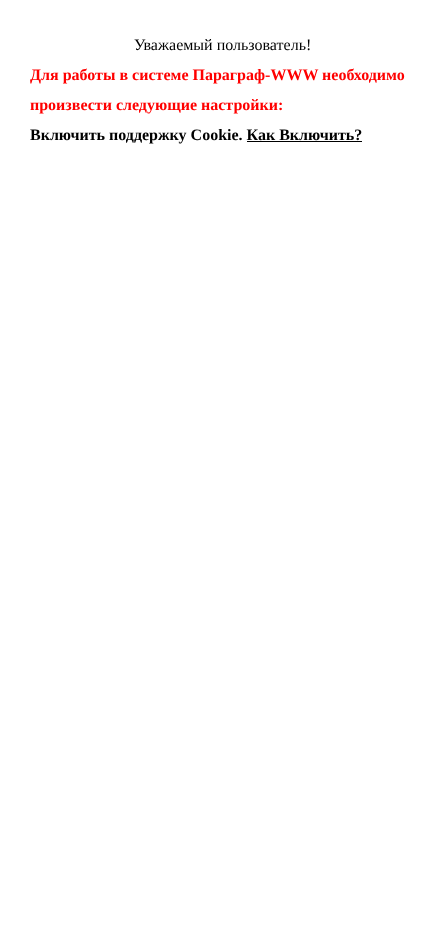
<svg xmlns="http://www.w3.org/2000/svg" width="445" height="929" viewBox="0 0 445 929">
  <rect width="100%" height="100%" fill="rgb(255,255,255)"/>
  <text x="134" y="50" font-family="Liberation Serif" font-size="16" fill="rgb(0,0,0)">Уважаемый пользователь!</text>
  <g font-family="Liberation Serif" font-size="16" font-weight="bold" fill="rgb(255,0,0)">
    <text>
      <tspan x="30" y="80">Для работы в системе Параграф-WWW необходимо</tspan>
      <tspan x="30" y="110">произвести следующие настройки:</tspan>
    </text>
  </g>
  <text x="30" y="140" font-family="Liberation Serif" font-size="16" font-weight="bold" fill="rgb(0,0,0)">Включить поддержку Cookie. Как Включить?</text>
  <rect x="247" y="141" width="115" height="1" fill="rgb(0,0,0)"/>
</svg>
